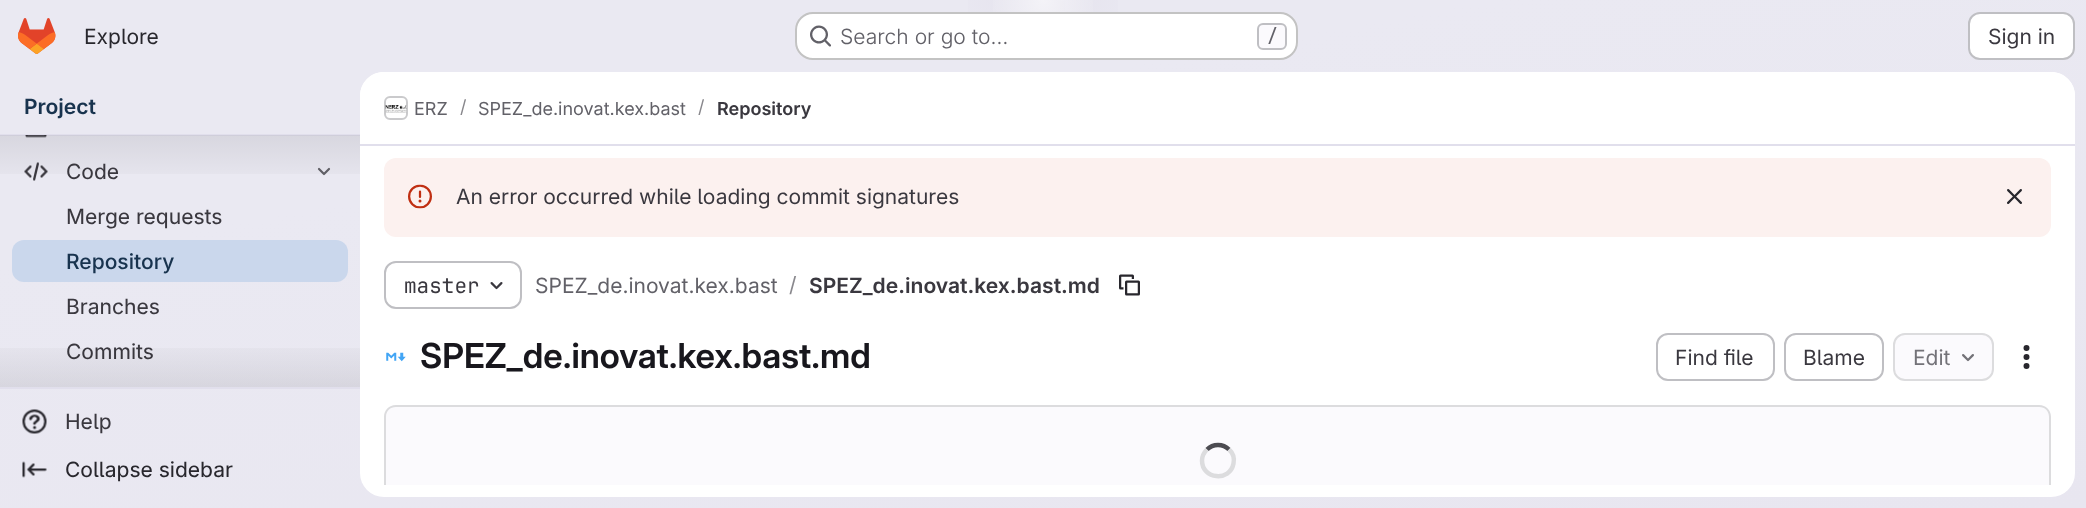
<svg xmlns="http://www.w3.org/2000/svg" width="2086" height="508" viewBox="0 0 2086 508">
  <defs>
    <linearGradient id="g1" gradientUnits="userSpaceOnUse" x1="1118" y1="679" x2="968" y2="-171"><stop offset="0" stop-color="rgb(232,230,240)"/><stop offset="0.7" stop-color="rgb(234,233,242)"/></linearGradient>
    <radialGradient id="g2" gradientUnits="userSpaceOnUse" cx="0" cy="0" r="1" gradientTransform="matrix(1043 0 0 509 1043 0)"><stop offset="0" stop-color="rgb(228,226,237)"/><stop offset="0.1" stop-color="rgb(228,226,237)" stop-opacity="0"/></radialGradient>
    <radialGradient id="g3" gradientUnits="userSpaceOnUse" cx="0" cy="0" r="1" gradientTransform="matrix(1043 0 0 509 1043 0)"><stop offset="0" stop-color="rgb(228,226,236)"/><stop offset="0.07" stop-color="rgb(228,226,236)" stop-opacity="0"/></radialGradient>
    <radialGradient id="g4" gradientUnits="userSpaceOnUse" cx="1043" cy="0" r="1161"><stop offset="0" stop-color="rgb(255,255,255)" stop-opacity="0.6"/><stop offset="0.05" stop-color="rgb(255,255,255)" stop-opacity="0"/></radialGradient>
    <linearGradient id="g5" gradientUnits="userSpaceOnUse" x1="180" y1="135" x2="180" y2="189"><stop offset="0" stop-color="rgb(5,5,6)" stop-opacity="0.08"/><stop offset="1" stop-color="rgb(5,5,6)" stop-opacity="0"/></linearGradient>
    <linearGradient id="g6" gradientUnits="userSpaceOnUse" x1="180" y1="333" x2="180" y2="387"><stop offset="0" stop-color="rgb(5,5,6)" stop-opacity="0"/><stop offset="1" stop-color="rgb(5,5,6)" stop-opacity="0.08"/></linearGradient>
    <clipPath id="clip1"><rect x="360" y="146" width="1715" height="339"/></clipPath>
  </defs>
  <rect width="100%" height="100%" fill="rgb(255,255,255)"/>
  <rect x="0" y="0" width="2086" height="508" fill="url(#g1)"/>
  <rect x="968" y="0" width="150" height="12" fill="url(#g2)"/>
  <rect x="1060" y="1" width="5" height="10" fill="url(#g3)"/>
  <rect x="993" y="0" width="100" height="12" fill="url(#g4)"/>
  <image x="18" y="18" width="38" height="36" href="pic1.png"/>
  <text x="84" y="44" font-family="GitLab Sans" font-size="21" fill="rgb(40,39,45)">Explore</text>
  <rect x="795" y="12" width="503" height="48" rx="18" fill="rgb(255,255,255)"/>
  <rect x="796" y="13" width="501" height="46" rx="17" fill="none" stroke="rgba(5,5,6,0.24)" stroke-width="2"/>
  <image x="810" y="25" width="21" height="22" href="pic2.png"/>
  <text x="840" y="44" font-family="GitLab Sans" font-size="21" font-weight="300" fill="rgb(98,97,104)">Search or go to…</text>
  <rect x="1258" y="24" width="28" height="25" rx="5" fill="rgb(251,250,253)" stroke="rgb(191,191,195)" stroke-width="2"/>
  <text x="1267" y="42" font-family="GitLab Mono" font-size="18" font-weight="500" fill="rgb(98,97,104)">/</text>
  <rect x="1969" y="13" width="105" height="46" rx="11" fill="rgb(255,255,255)" stroke="rgb(191,191,195)" stroke-width="2"/>
  <text x="1988" y="44" font-family="GitLab Sans" font-size="21" fill="rgb(58,56,63)">Sign in</text>
  <text x="24" y="114" font-family="GitLab Sans" font-size="21" font-weight="600" fill="rgb(24,51,78)">Project</text>
  <rect x="0" y="134" width="360" height="2" fill="rgb(225,223,236)"/>
  <rect x="0" y="387" width="360" height="2" fill="rgb(225,223,236)"/>
  <image x="25" y="135" width="22" height="3" href="pic3.png"/>
  <image x="24" y="162" width="24" height="19" href="pic4.png"/>
  <path d="M329 169L324 174L319 169" fill="none" stroke="rgb(98,97,104)" stroke-width="2.2" stroke-linecap="round" stroke-linejoin="round"/>
  <rect x="0" y="135" width="360" height="39" fill="url(#g5)"/>
  <g font-family="'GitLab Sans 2'" font-size="21" fill="rgb(58,56,63)">
    <text x="66" y="179">Code</text>
    <text x="66" y="224">Merge requests</text>
  </g>
  <rect x="12" y="240" width="336" height="42" rx="12" fill="rgb(202,215,236)"/>
  <text x="66" y="269" font-family="GitLab Sans" font-size="21" font-weight="500" fill="rgb(24,51,78)">Repository</text>
  <g font-family="'GitLab Sans 2'" font-size="21" fill="rgb(58,56,63)">
    <text x="66" y="314">Branches</text>
    <text x="66" y="359">Commits</text>
  </g>
  <rect x="0" y="348" width="360" height="39" fill="url(#g6)"/>
  <image x="22" y="409" width="25" height="25" href="pic5.png"/>
  <text x="65" y="429" font-family="'GitLab Sans 2'" font-size="21" fill="rgb(58,56,63)">Help</text>
  <image x="22" y="461" width="25" height="17" href="pic6.png"/>
  <text x="65" y="477" font-family="'GitLab Sans 2'" font-size="21" fill="rgb(40,39,45)">Collapse sidebar</text>
  <rect x="360" y="72" width="1715" height="425" rx="24" fill="rgb(255,255,255)"/>
  <path d="M384 72H2051C2064.5 72 2075 82.5 2075 96V146H360V96C360 82.5 370.5 72 384 72Z" fill="rgb(255,255,255)"/>
  <rect x="360" y="144" width="1715" height="2" fill="rgb(225,223,236)"/>
  <rect x="385" y="97" width="22" height="22" rx="5" fill="none" stroke="rgb(220,220,222)" stroke-width="2"/>
  <image x="385" y="105" width="22" height="8" href="pic7.png"/>
  <rect x="385" y="97" width="22" height="22" rx="5" fill="none" stroke="rgba(5,5,6,0.08)" stroke-width="2"/>
  <text x="414" y="115" font-family="GitLab Sans" font-size="18" fill="rgb(98,97,104)">ERZ</text>
  <text x="460" y="113" font-family="GitLab Sans" font-size="18" fill="rgb(137,136,141)">/</text>
  <text x="478" y="115" font-family="GitLab Sans" font-size="18" fill="rgb(98,97,104)">SPEZ_de.inovat.kex.bast</text>
  <text x="698" y="113" font-family="GitLab Sans" font-size="18" fill="rgb(137,136,141)">/</text>
  <text x="717" y="115" font-family="GitLab Sans" font-size="18" font-weight="600" fill="rgb(58,56,63)">Repository</text>
  <rect x="384" y="158" width="1667" height="79" rx="12" fill="rgb(252,241,239)"/>
  <image x="408" y="184" width="24" height="25" href="pic8.png"/>
  <text x="456" y="204" font-family="GitLab Sans" font-size="21" fill="rgb(58,56,63)">An error occurred while loading commit signatures</text>
  <image x="2007" y="189" width="15" height="15" href="pic9.png"/>
  <rect x="385" y="262" width="136" height="46" rx="11" fill="none" stroke="rgb(191,191,195)" stroke-width="2"/>
  <text x="404" y="293" font-family="GitLab Mono" font-size="21" fill="rgb(58,56,63)">master</text>
  <image x="490" y="282" width="13" height="8" href="pic10.png"/>
  <text x="535" y="293" font-family="GitLab Sans" font-size="21" fill="rgb(98,97,104)">SPEZ_de.inovat.kex.bast</text>
  <text x="789" y="292" font-family="GitLab Sans" font-size="21" fill="rgb(137,136,141)">/</text>
  <text x="809" y="293" font-family="GitLab Sans" font-size="21" font-weight="600" fill="rgb(58,56,63)">SPEZ_de.inovat.kex.bast.md</text>
  <image x="1119" y="274" width="21" height="22" href="pic11.png"/>
  <image x="386" y="352" width="20" height="10" href="pic12.png"/>
  <text x="420" y="368" font-family="'GitLab Sans 2'" font-size="34.5" font-weight="600" fill="rgb(24,23,29)">SPEZ_de.inovat.kex.bast.md</text>
  <rect x="1657" y="334" width="117" height="46" rx="11" fill="none" stroke="rgb(191,191,195)" stroke-width="2"/>
  <text x="1675" y="365" font-family="GitLab Sans" font-size="21" fill="rgb(58,56,63)">Find file</text>
  <rect x="1785" y="334" width="98" height="46" rx="11" fill="none" stroke="rgb(191,191,195)" stroke-width="2"/>
  <text x="1803" y="365" font-family="GitLab Sans" font-size="21" fill="rgb(58,56,63)">Blame</text>
  <rect x="1894" y="334" width="99" height="46" rx="11" fill="rgb(251,250,253)" stroke="rgb(220,220,222)" stroke-width="2"/>
  <text x="1913" y="365" font-family="GitLab Sans" font-size="21" fill="rgb(115,114,120)">Edit</text>
  <image x="1962" y="354" width="12" height="8" href="pic13.png"/>
  <image x="2023" y="345" width="7" height="24" href="pic14.png"/>
  <path d="M396 405H2039C2045.5 405 2051 410.5 2051 417V485H384V417C384 410.5 389.5 405 396 405Z" fill="rgb(251,250,253)"/>
  <g clip-path="url(#clip1)">
    <path d="M396 405C389 405 384 410 384 417V497H386V417C386 411 390 407 396 407H2039C2045 407 2049 411 2049 417V497H2051V417C2051 410 2046 405 2039 405Z" fill="rgb(220,220,222)"/>
  </g>
  <path d="M1207 449.5C1213 443.5 1223 443.5 1229 449.5" fill="none" stroke="rgb(76,75,81)" stroke-width="4.5"/>
  <path d="M1229 449.5C1233 453 1234.5 458.5 1233.5 463.5C1230 482 1202 479.5 1202 460.5C1202 456.5 1204 452.5 1207 449.5" fill="none" stroke="rgb(220,220,222)" stroke-width="4.5"/>
</svg>
